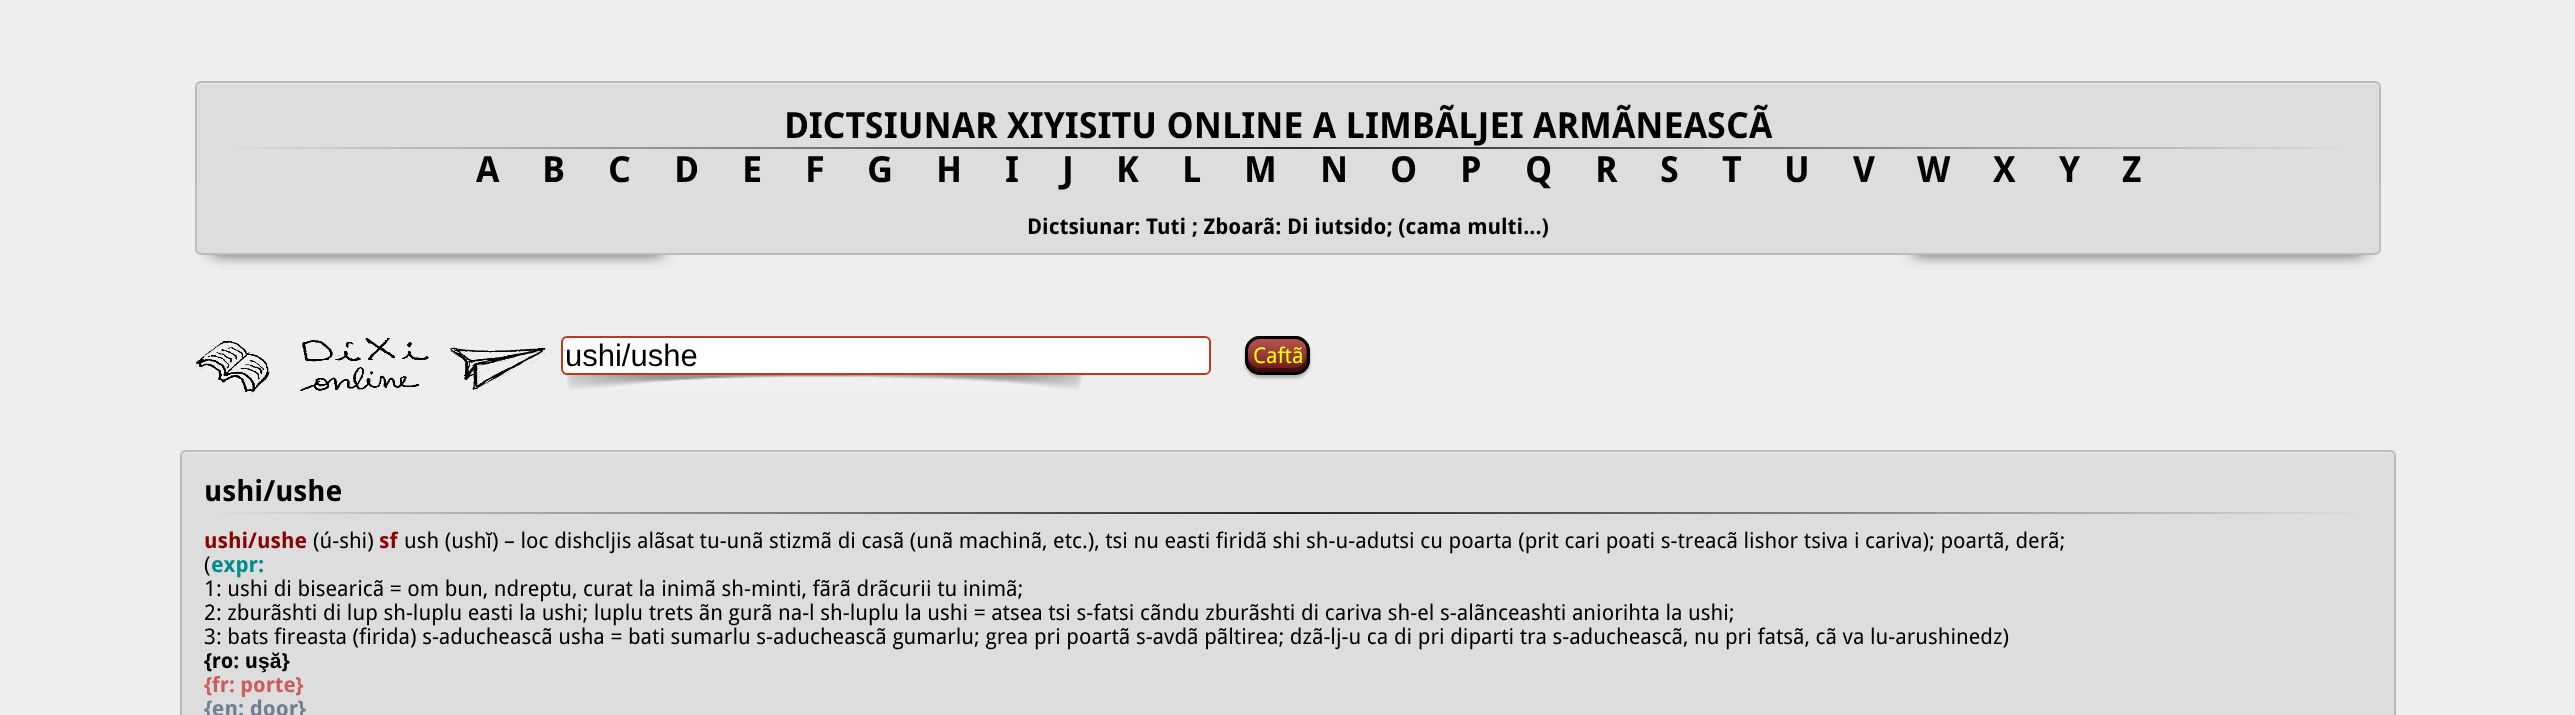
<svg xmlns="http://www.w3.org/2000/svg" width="2575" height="715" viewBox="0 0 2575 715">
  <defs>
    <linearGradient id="g1" gradientUnits="userSpaceOnUse" x1="219" y1="148" x2="2357" y2="148"><stop offset="0" stop-color="rgb(221,221,221)"/><stop offset="0.5" stop-color="rgb(39,39,39)"/><stop offset="1" stop-color="rgb(221,221,221)"/></linearGradient>
    <clipPath id="clip1"><rect x="1245" y="336" width="65" height="39" rx="15"/></clipPath>
    <linearGradient id="g2" gradientUnits="userSpaceOnUse" x1="1248" y1="372" x2="1248" y2="339"><stop offset="0.1" stop-color="rgb(0,0,0)" stop-opacity="0.3"/><stop offset="1" stop-color="rgb(255,255,255)" stop-opacity="0.2"/></linearGradient>
    <linearGradient id="g3" gradientUnits="userSpaceOnUse" x1="204" y1="512" x2="2372" y2="512"><stop offset="0" stop-color="rgb(221,221,221)"/><stop offset="0.5" stop-color="rgb(39,39,39)"/><stop offset="1" stop-color="rgb(221,221,221)"/></linearGradient>
  </defs>
  <rect width="100%" height="100%" fill="rgb(238,238,238)"/>
  <rect x="212" y="191" width="450" height="63" fill="rgba(0,0,0,0.7)" filter="blur(7.5px)"/>
  <rect x="1914" y="191" width="450" height="63" fill="rgba(0,0,0,0.7)" filter="blur(7.5px)"/>
  <rect x="195" y="81" width="2186" height="174" rx="6" fill="rgb(221,221,221)"/>
  <path d="M201 84H2374C2377 84 2379 86 2379 88C2379 85 2377 83 2374 83H202C200 83 199 84 198 85Z" fill="rgb(238,238,238)"/>
  <rect x="196" y="82" width="2184" height="172" rx="5" fill="none" stroke="rgb(187,187,187)" stroke-width="2"/>
  <text x="784" y="138" font-family="Droid Sans" font-size="36" font-weight="bold" fill="rgb(0,0,0)">DICTSIUNAR XIYISITU ONLINE A LIMBÃLJEI ARMÃNEASCÃ</text>
  <rect x="234" y="147" width="2108" height="2" fill="url(#g1)"/>
  <g font-family="Droid Sans" font-size="36" font-weight="bold" fill="rgb(0,0,0)">
    <text x="476" y="182">A</text>
    <text x="542" y="182">B</text>
    <text x="608" y="182">C</text>
    <text x="674" y="182">D</text>
    <text x="742" y="182">E</text>
    <text x="805" y="182">F</text>
    <text x="867" y="182">G</text>
    <text x="936" y="182">H</text>
    <text x="1005" y="182">I</text>
    <text x="1062" y="182">J</text>
    <text x="1116" y="182">K</text>
    <text x="1182" y="182">L</text>
    <text x="1244" y="182">M</text>
    <text x="1320" y="182">N</text>
    <text x="1390" y="182">O</text>
    <text x="1460" y="182">P</text>
    <text x="1525" y="182">Q</text>
    <text x="1595" y="182">R</text>
    <text x="1660" y="182">S</text>
    <text x="1722" y="182">T</text>
    <text x="1784" y="182">U</text>
    <text x="1853" y="182">V</text>
    <text x="1917" y="182">W</text>
    <text x="1993" y="182">X</text>
    <text x="2059" y="182">Y</text>
    <text x="2122" y="182">Z</text>
  </g>
  <text x="1027" y="234" font-family="Droid Sans" font-size="21.6" font-weight="bold" fill="rgb(0,0,0)">Dictsiunar: Tuti ; Zboarã: Di iutsido; (cama multi...)</text>
  <image x="194" y="337" width="359" height="58" href="pic1.png"/>
  <rect x="562" y="337" width="648" height="37" rx="5" fill="rgb(255,255,255)" stroke="rgb(189,57,24)" stroke-width="2"/>
  <text x="565" y="366" font-family="Liberation Sans" font-size="31" fill="rgb(0,0,0)">ushi/ushe</text>
  <image x="565" y="375" width="519" height="15" href="pic2.png"/>
  <rect x="1245" y="339" width="65" height="39" rx="15" fill="rgba(0,0,0,0.25)" filter="blur(1.5px)"/>
  <rect x="1245" y="336" width="65" height="39" rx="15" fill="rgb(160,37,37)"/>
  <g clip-path="url(#clip1)">
    <rect x="1245" y="339" width="65" height="33" fill="url(#g2)"/>
  </g>
  <path d="M1248 356V360C1248 367 1253 372 1260 372H1295C1302 372 1307 367 1307 360V351L1306 346V356C1306 362 1301 368 1294 368H1260C1253 368 1248 362 1248 356Z" fill="rgba(0,0,0,0.45)"/>
  <rect x="1246.5" y="337.5" width="62" height="36" rx="13.5" fill="none" stroke="rgb(0,0,0)" stroke-width="3"/>
  <text x="1253" y="363" font-family="Droid Sans" font-size="21.6" fill="rgb(255,255,0)">Caftã</text>
  <rect x="180" y="450" width="2216" height="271" rx="6" fill="rgb(221,221,221)"/>
  <path d="M186 453H2390C2392 453 2394 455 2394 458V457C2394 454 2392 452 2389 452H187C184 452 182 454 182 457V458C182 455 184 453 186 453Z" fill="rgb(238,238,238)"/>
  <rect x="181" y="451" width="2214" height="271" rx="5" fill="none" stroke="rgb(187,187,187)" stroke-width="2"/>
  <text x="204" y="501" font-family="Droid Sans" font-size="29" font-weight="bold" fill="rgb(0,0,0)">ushi/ushe</text>
  <rect x="219" y="512" width="2138" height="2" fill="url(#g3)"/>
  <text x="204" y="548" font-family="Droid Sans" font-size="21.6" font-weight="bold" fill="rgb(139,0,0)">ushi/ushe</text>
  <text x="313" y="548" font-family="Droid Sans" font-size="21.6" fill="rgb(0,0,0)">(ú-shi)</text>
  <text x="379" y="548" font-family="Droid Sans" font-size="21.6" font-weight="bold" fill="rgb(139,0,0)">sf</text>
  <text x="404" y="548" font-family="Droid Sans" font-size="21.6" fill="rgb(0,0,0)">ush (ush</text>
  <text x="486" y="548" font-family="Liberation Sans" font-size="21.6" fill="rgb(0,0,0)">ĭ</text>
  <g font-family="Droid Sans" font-size="21.6" fill="rgb(0,0,0)">
    <text x="492" y="548">) – loc dishcljis alãsat tu-unã stizmã di casã (unã machinã, etc.), tsi nu easti firidã shi sh-u-adutsi cu poarta (prit cari poati s-treacã lishor tsiva i cariva); poartã, derã;</text>
    <text x="204" y="572">(</text>
  </g>
  <text x="211" y="572" font-family="Droid Sans" font-size="21.6" font-weight="bold" fill="rgb(0,139,139)">expr:</text>
  <g font-family="Droid Sans" font-size="21.6" fill="rgb(0,0,0)">
    <text>
      <tspan x="204" y="596">1: ushi di bisearicã = om bun, ndreptu, curat la inimã sh-minti, fãrã drãcurii tu inimã;</tspan>
      <tspan x="204" y="620">2: zburãshti di lup sh-luplu easti la ushi; luplu trets ãn gurã na-l sh-luplu la ushi = atsea tsi s-fatsi cãndu zburãshti di cariva sh-el s-alãnceashti aniorihta la ushi;</tspan>
      <tspan x="204" y="644">3: bats fireasta (firida) s-aducheascã usha = bati sumarlu s-aducheascã gumarlu; grea pri poartã s-avdã pãltirea; dzã-lj-u ca di pri diparti tra s-aducheascã, nu pri fatsã, cã va lu-arushinedz)</tspan>
    </text>
  </g>
  <text x="204" y="668" font-family="Droid Sans" font-size="21" font-weight="bold" fill="rgb(0,0,0)">{ro: u</text>
  <text x="258" y="668" font-family="Liberation Sans" font-size="21" font-weight="bold" fill="rgb(0,0,0)">şă</text>
  <text x="282" y="668" font-family="Droid Sans" font-size="21" font-weight="bold" fill="rgb(0,0,0)">}</text>
  <text x="204" y="692" font-family="Droid Sans" font-size="21" font-weight="bold" fill="rgb(205,92,92)">{fr: porte}</text>
  <text x="204" y="716" font-family="Droid Sans" font-size="21.6" font-weight="bold" fill="rgb(112,128,144)">{en: door}</text>
</svg>
